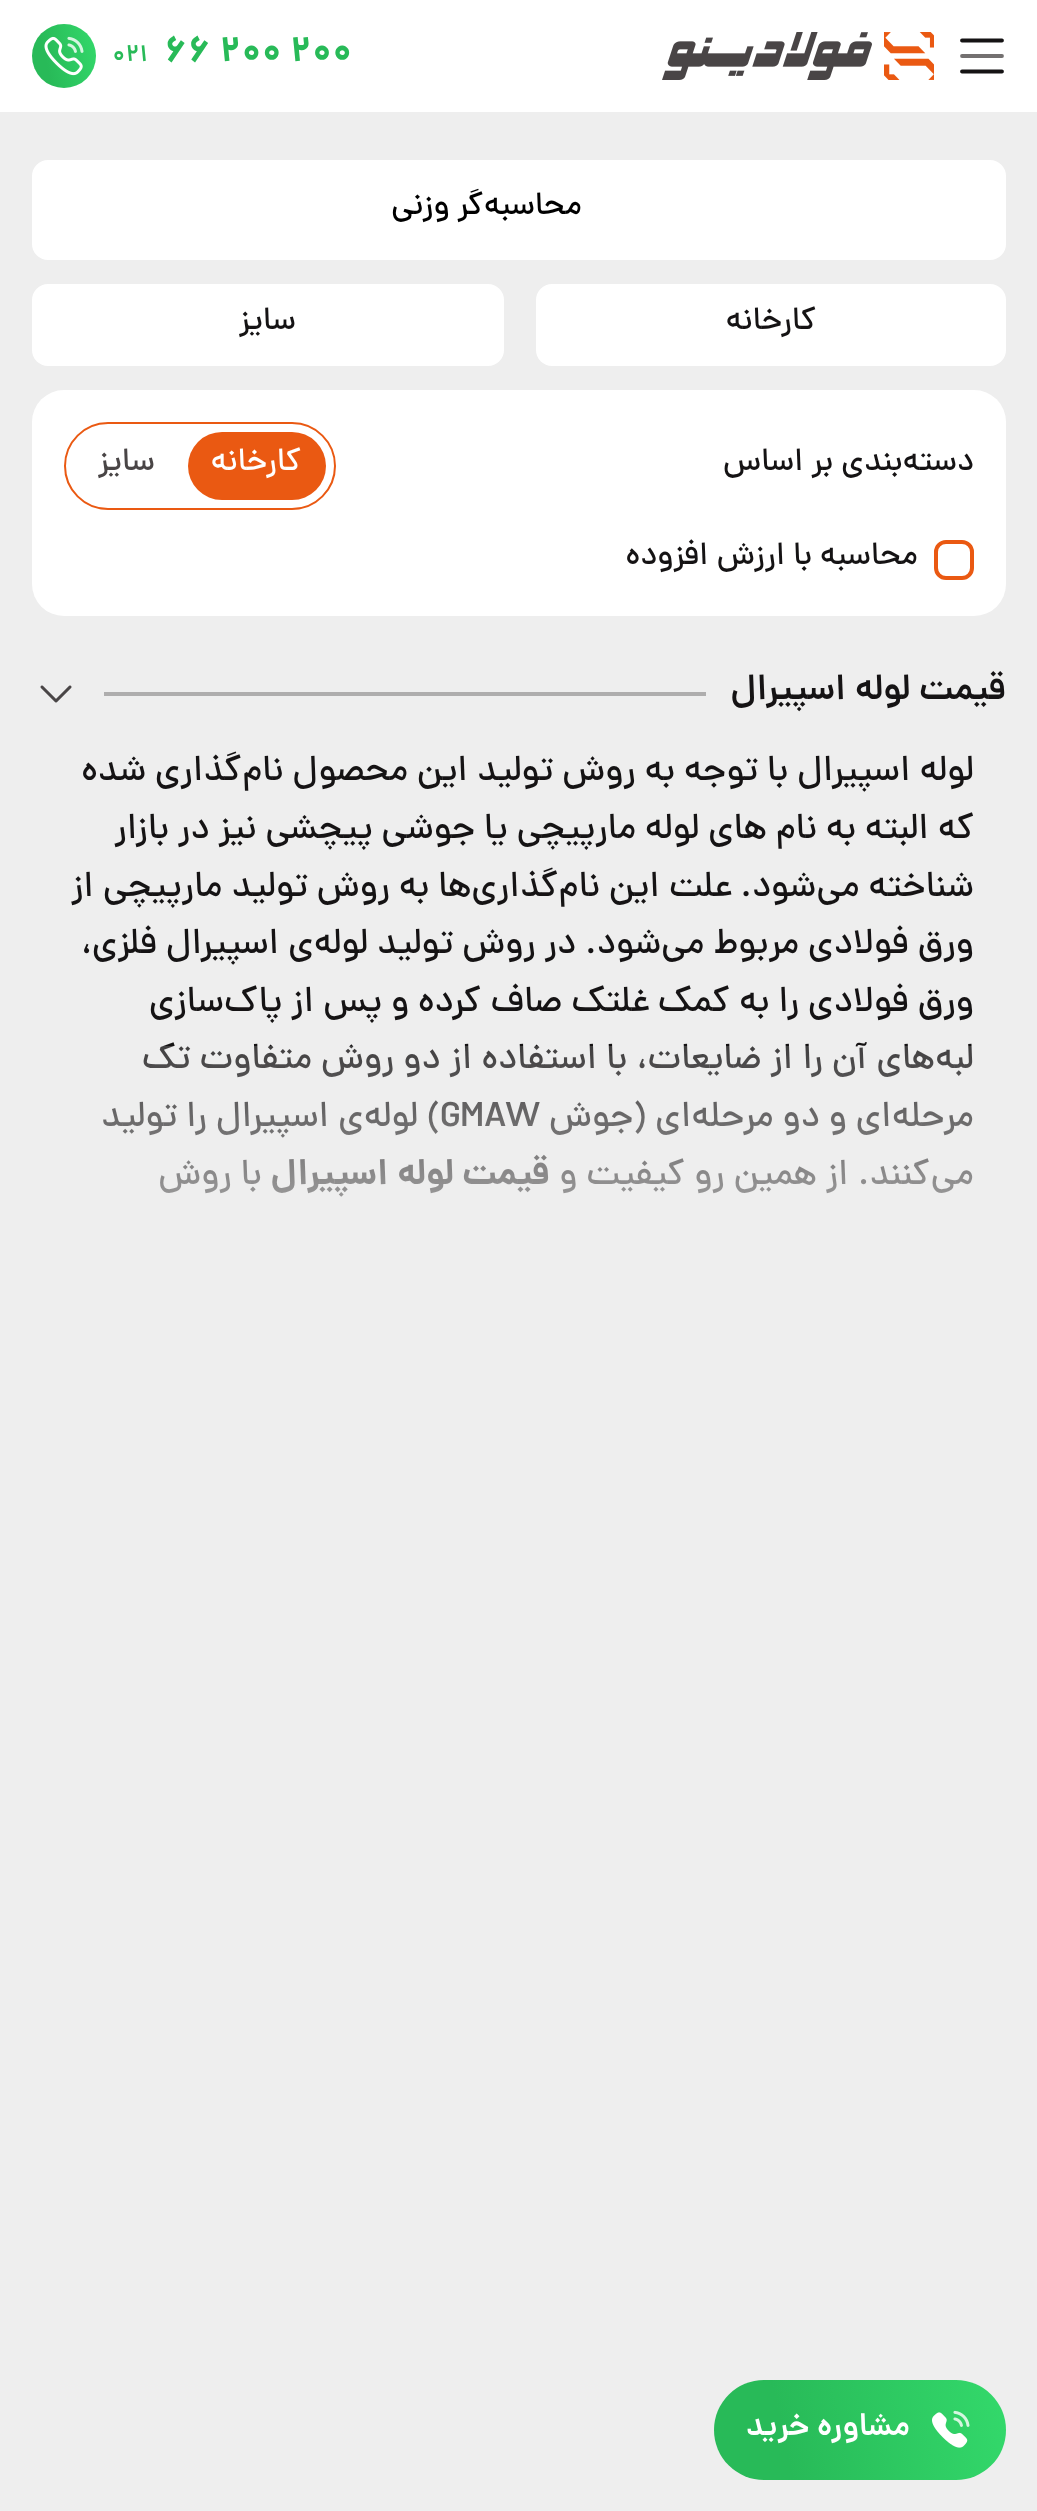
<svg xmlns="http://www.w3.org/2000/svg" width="1037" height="2511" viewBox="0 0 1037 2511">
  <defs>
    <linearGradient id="g1" gradientUnits="userSpaceOnUse" x1="27" y1="64" x2="101" y2="48"><stop offset="0.25" stop-color="rgb(40,186,88)"/><stop offset="1" stop-color="rgb(51,217,107)"/></linearGradient>
    <linearGradient id="g2" gradientUnits="userSpaceOnUse" x1="519" y1="1046" x2="519" y2="1346"><stop offset="0" stop-color="rgb(238,238,238)" stop-opacity="0.2"/><stop offset="1" stop-color="rgb(238,238,238)"/></linearGradient>
    <linearGradient id="g3" gradientUnits="userSpaceOnUse" x1="710" y1="2462" x2="1010" y2="2398"><stop offset="0.25" stop-color="rgb(40,186,88)"/><stop offset="1" stop-color="rgb(51,217,107)"/></linearGradient>
  </defs>
  <rect width="100%" height="100%" fill="rgb(255,255,255)"/>
  <path d="M962 71.5H1002M962 40.5H1002" fill="none" stroke="rgb(21,19,20)" stroke-width="3.8" stroke-linecap="round" stroke-linejoin="round"/>
  <path d="M962 56H1002" fill="none" stroke="rgb(115,112,112)" stroke-width="3.8" stroke-linecap="round" stroke-linejoin="round"/>
  <image x="884" y="32" width="50" height="48" href="pic1.png"/>
  <image x="662" y="32" width="210" height="48" href="pic2.png"/>
  <text x="164" y="61" font-family="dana" font-size="36" font-weight="bold" fill="rgb(40,186,88)">۶۶ ۲۰۰ ۲۰۰</text>
  <text x="112" y="61" font-family="dana" font-size="24" font-weight="600" fill="rgb(40,186,88)">۰۲۱</text>
  <circle cx="64" cy="56" r="32" fill="url(#g1)"/>
  <image x="44" y="36" width="40" height="40" href="pic3.png"/>
  <rect x="0" y="112" width="1037" height="2399" fill="rgb(238,238,238)"/>
  <rect x="32" y="160" width="974" height="100" rx="16" fill="rgb(255,255,255)"/>
  <text x="582" y="214" font-family="dana" font-size="32" font-weight="500" direction="rtl" fill="rgb(0,0,0)">محاسبه‌گر وزنی</text>
  <rect x="536" y="284" width="470" height="82" rx="16" fill="rgb(255,255,255)"/>
  <text x="816" y="329" font-family="dana" font-size="32" font-weight="500" direction="rtl" fill="rgb(21,19,20)">کارخانه</text>
  <rect x="32" y="284" width="472" height="82" rx="16" fill="rgb(255,255,255)"/>
  <text x="296" y="329" font-family="dana" font-size="32" font-weight="500" direction="rtl" fill="rgb(21,19,20)">سایز</text>
  <rect x="32" y="390" width="974" height="226" rx="32" fill="rgb(255,255,255)"/>
  <text x="974" y="470" font-family="dana" font-size="32" font-weight="500" direction="rtl" fill="rgb(21,19,20)">دسته‌بندی بر اساس</text>
  <rect x="65" y="423" width="270" height="86" rx="43" fill="none" stroke="rgb(234,89,18)" stroke-width="2"/>
  <rect x="188" y="432" width="138" height="68" rx="34" fill="rgb(234,89,18)"/>
  <text x="301" y="470" font-family="dana" font-size="32" font-weight="500" direction="rtl" fill="rgb(255,255,255)">کارخانه</text>
  <text x="155" y="470" font-family="dana" font-size="32" font-weight="500" direction="rtl" fill="rgb(73,69,70)">سایز</text>
  <rect x="936" y="542" width="36" height="36" rx="10" fill="none" stroke="rgb(234,89,18)" stroke-width="4"/>
  <text x="918" y="564" font-family="dana" font-size="32" font-weight="500" direction="rtl" fill="rgb(21,19,20)">محاسبه با ارزش افزوده</text>
  <text x="1006" y="699" font-family="dana" font-size="36" font-weight="600" direction="rtl" fill="rgb(21,19,20)">قیمت لوله اسپیرال</text>
  <rect x="104" y="692" width="602" height="4" fill="rgb(174,173,173)"/>
  <image x="40" y="685" width="32" height="18" href="pic4.png"/>
  <g font-family="dana" font-size="36" font-weight="500" direction="rtl" fill="rgb(21,19,20)">
    <text>
      <tspan x="974" y="780">لوله اسپیرال با توجه به روش تولید این محصول نام‌گذاری شده</tspan>
      <tspan x="974" y="838">که البته به نام های لوله مارپیچی یا جوشی پیچشی نیز در بازار</tspan>
      <tspan x="974" y="896">شناخته می‌شود. علت این نام‌گذاری‌ها به روش تولید مارپیچی از</tspan>
      <tspan x="974" y="953">ورق فولادی مربوط می‌شود. در روش تولید لوله‌ی اسپیرال فلزی،</tspan>
      <tspan x="974" y="1011">ورق فولادی را به کمک غلتک صاف کرده و پس از پاک‌سازی</tspan>
      <tspan x="974" y="1068">لبه‌های آن را از ضایعات، با استفاده از دو روش متفاوت تک</tspan>
      <tspan x="974" y="1126">مرحله‌ای و دو مرحله‌ای (جوش</tspan>
    </text>
  </g>
  <text x="440" y="1126" font-family="dana" font-size="36" font-weight="500" fill="rgb(21,19,20)">GMAW</text>
  <g font-family="dana" font-size="36" font-weight="500" direction="rtl" fill="rgb(21,19,20)">
    <text x="440" y="1126">) لوله‌ی اسپیرال را تولید</text>
    <text x="974" y="1184">می‌کنند. از همین رو کیفیت و</text>
  </g>
  <text x="550" y="1184" font-family="dana" font-size="36" font-weight="bold" direction="rtl" fill="rgb(21,19,20)">قیمت لوله اسپیرال</text>
  <text x="262" y="1184" font-family="dana" font-size="36" font-weight="500" direction="rtl" fill="rgb(21,19,20)">با روش</text>
  <rect x="103" y="1046" width="870" height="151" fill="url(#g2)"/>
  <rect x="714" y="2380" width="292" height="100" rx="50" fill="url(#g3)"/>
  <image x="932" y="2410" width="38" height="38" href="pic5.png"/>
  <text x="910" y="2435" font-family="dana" font-size="32" font-weight="600" direction="rtl" fill="rgb(255,255,255)">مشاوره خرید</text>
</svg>
